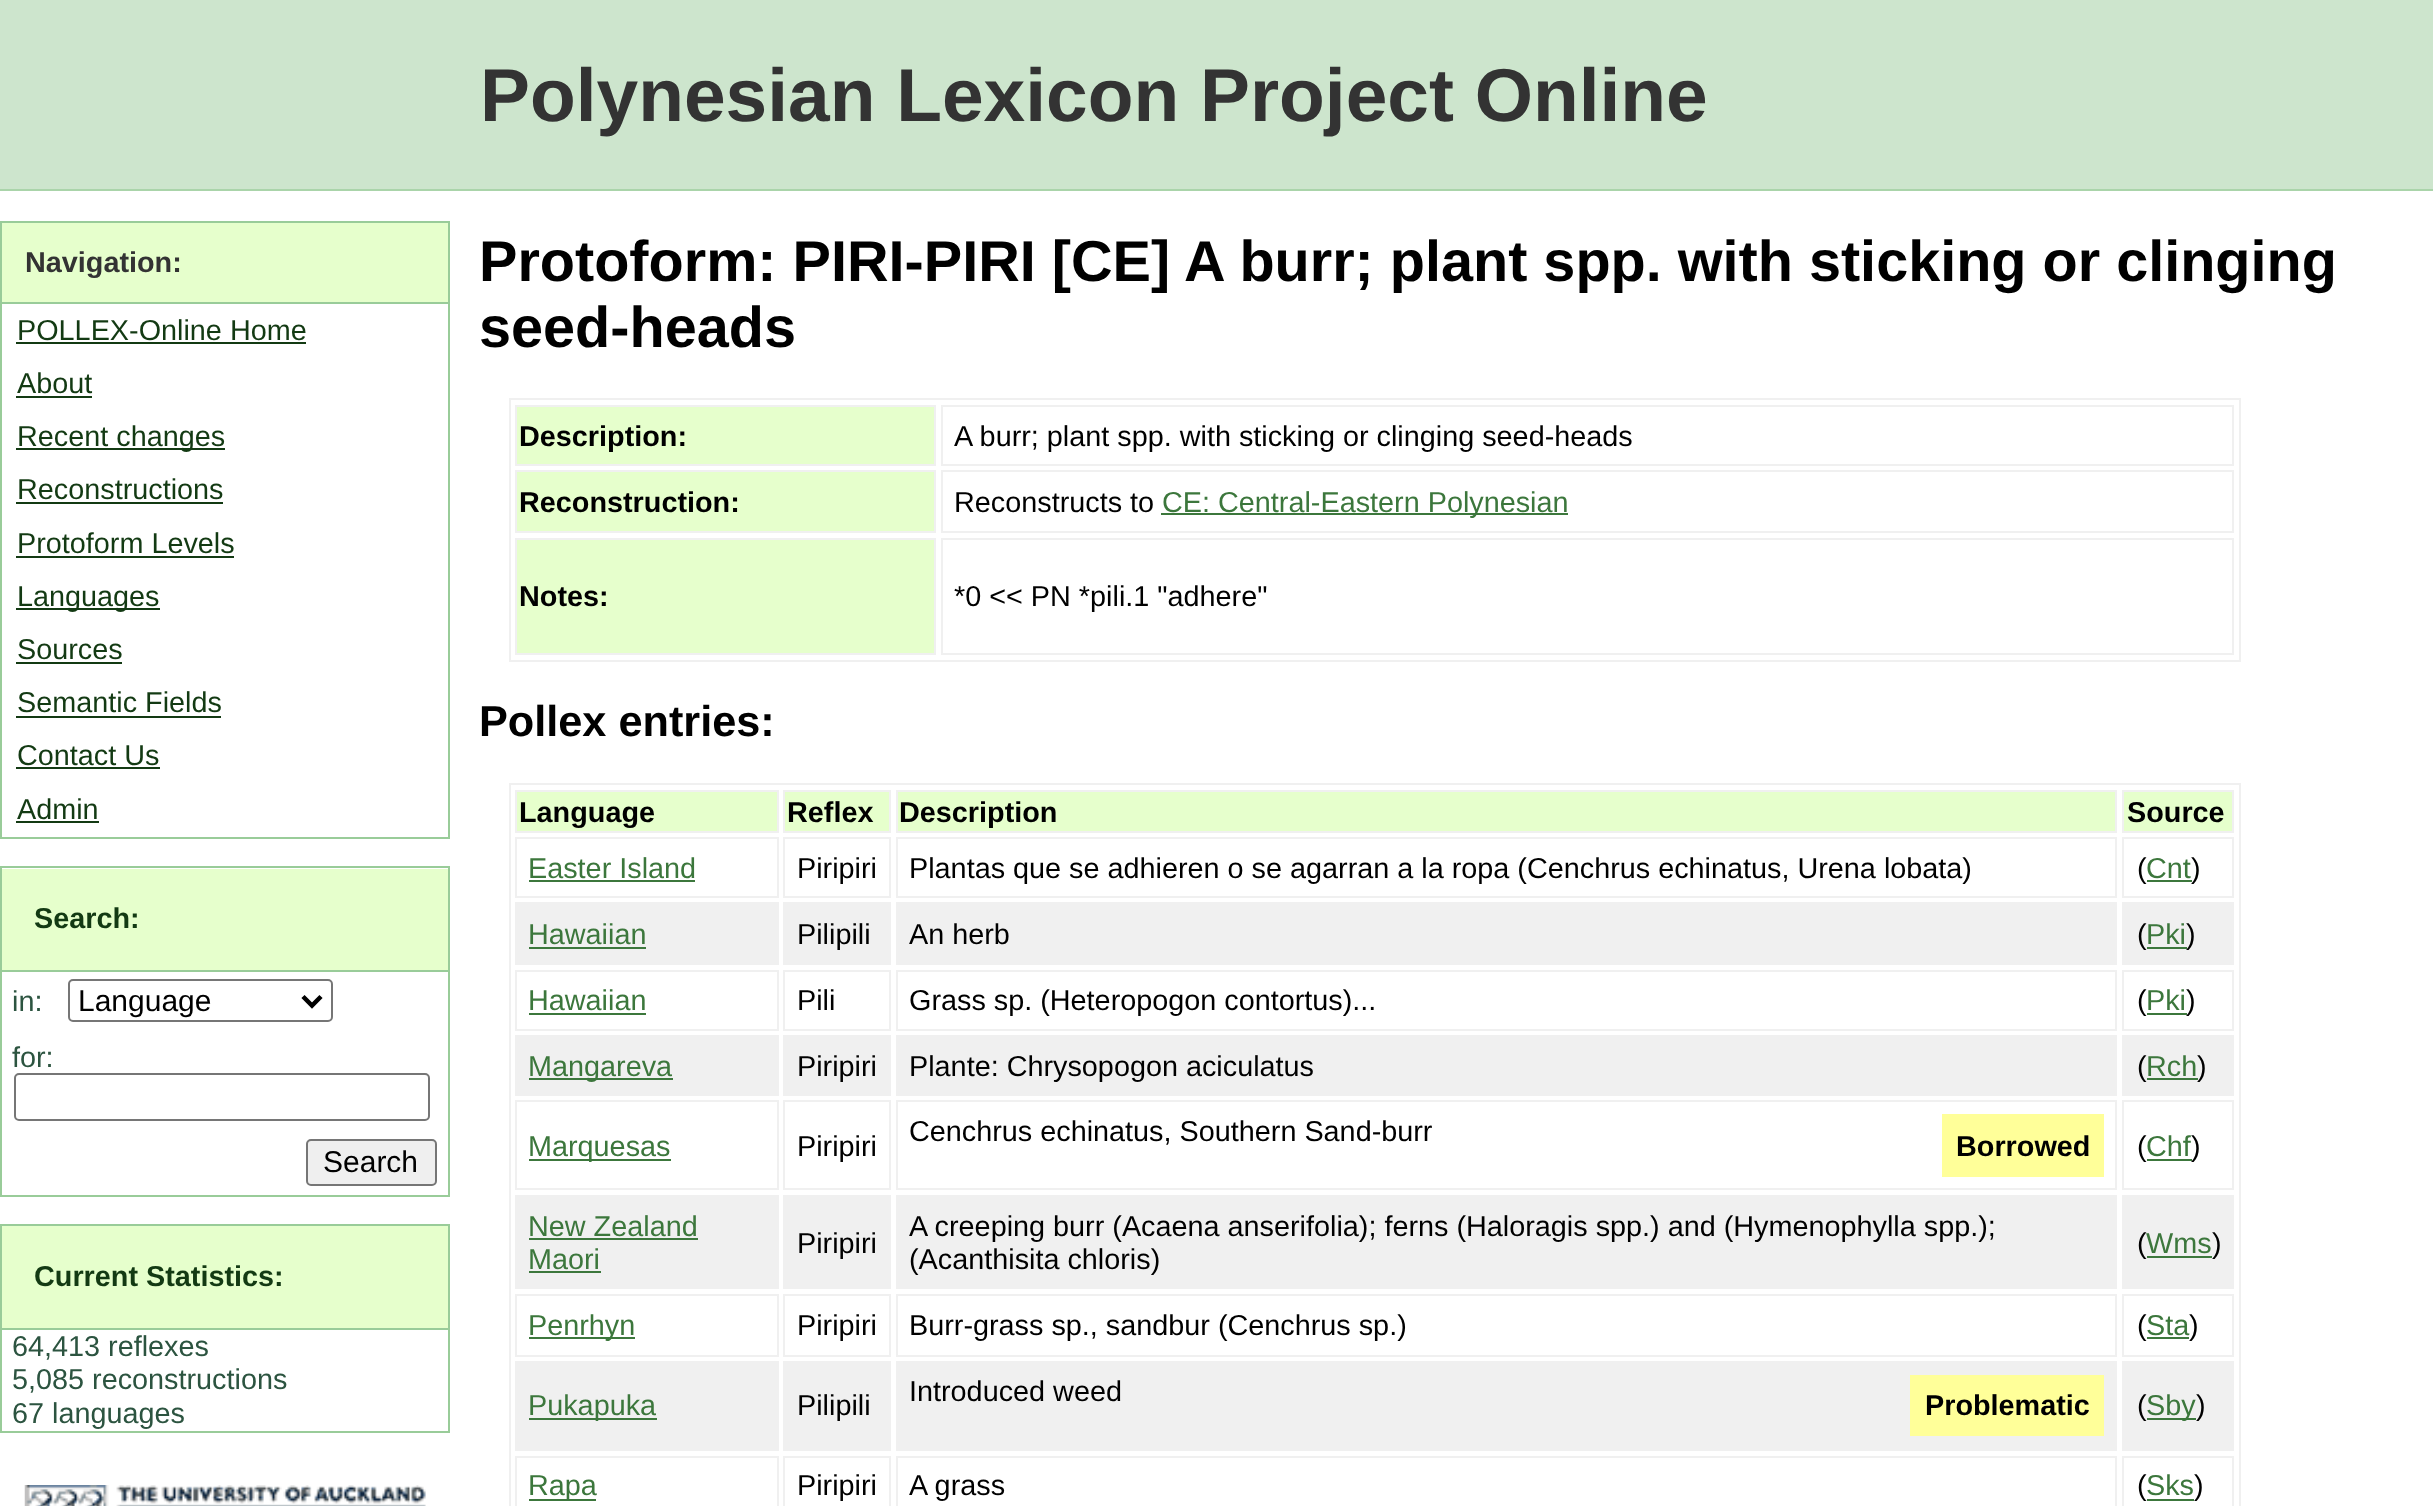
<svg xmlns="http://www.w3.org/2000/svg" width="2433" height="1506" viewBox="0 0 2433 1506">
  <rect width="100%" height="100%" fill="rgb(255,255,255)"/>
  <rect x="0" y="0" width="2433" height="189" fill="rgb(205,229,205)"/>
  <rect x="0" y="189" width="2433" height="2" fill="rgb(170,212,170)"/>
  <text x="480" y="121" font-family="Liberation Sans" font-size="74.9" font-weight="bold" fill="rgb(51,51,51)">Polynesian Lexicon Project Online</text>
  <rect x="1" y="222" width="448" height="616" fill="none" stroke="rgb(153,204,153)" stroke-width="2"/>
  <rect x="2" y="223" width="446" height="79" fill="rgb(230,255,204)"/>
  <rect x="2" y="302" width="446" height="2" fill="rgb(153,204,153)"/>
  <text x="25" y="272" font-family="Liberation Sans" font-size="28.8" font-weight="bold" fill="rgb(51,51,51)">Navigation:</text>
  <text x="17" y="340" font-family="Liberation Sans" font-size="28.8" fill="rgb(19,58,19)">POLLEX-Online Home</text>
  <rect x="16" y="342" width="290" height="2" fill="rgb(19,58,19)"/>
  <text x="17" y="393" font-family="Liberation Sans" font-size="28.8" fill="rgb(19,58,19)">About</text>
  <rect x="16" y="396" width="76" height="2" fill="rgb(19,58,19)"/>
  <rect x="16" y="448" width="209" height="2" fill="rgb(19,58,19)"/>
  <g font-family="Liberation Sans" font-size="28.8" fill="rgb(19,58,19)">
    <text>
      <tspan x="17" y="446">Recent changes</tspan>
      <tspan x="17" y="499">Reconstructions</tspan>
    </text>
  </g>
  <rect x="16" y="502" width="207" height="2" fill="rgb(19,58,19)"/>
  <text x="17" y="553" font-family="Liberation Sans" font-size="28.8" fill="rgb(19,58,19)">Protoform Levels</text>
  <rect x="16" y="556" width="218" height="2" fill="rgb(19,58,19)"/>
  <rect x="16" y="608" width="144" height="2" fill="rgb(19,58,19)"/>
  <g font-family="Liberation Sans" font-size="28.8" fill="rgb(19,58,19)">
    <text>
      <tspan x="17" y="606">Languages</tspan>
      <tspan x="17" y="659">Sources</tspan>
    </text>
  </g>
  <rect x="16" y="662" width="106" height="2" fill="rgb(19,58,19)"/>
  <text x="17" y="712" font-family="Liberation Sans" font-size="28.8" fill="rgb(19,58,19)">Semantic Fields</text>
  <rect x="16" y="716" width="205" height="2" fill="rgb(19,58,19)"/>
  <text x="17" y="765" font-family="Liberation Sans" font-size="28.8" fill="rgb(19,58,19)">Contact Us</text>
  <rect x="16" y="767" width="144" height="2" fill="rgb(19,58,19)"/>
  <text x="17" y="819" font-family="Liberation Sans" font-size="28.8" fill="rgb(19,58,19)">Admin</text>
  <rect x="16" y="821" width="83" height="2" fill="rgb(19,58,19)"/>
  <rect x="1" y="867" width="448" height="329" fill="none" stroke="rgb(153,204,153)" stroke-width="2"/>
  <rect x="2" y="869" width="446" height="101" fill="rgb(230,255,204)"/>
  <rect x="2" y="970" width="446" height="2" fill="rgb(153,204,153)"/>
  <text x="34" y="928" font-family="Liberation Sans" font-size="28.8" font-weight="bold" fill="rgb(19,58,19)">Search:</text>
  <text x="12" y="1011" font-family="Liberation Sans" font-size="28.8" fill="rgb(44,84,64)">in:</text>
  <rect x="69" y="980" width="263" height="41" rx="4" fill="none" stroke="rgb(118,118,118)" stroke-width="2"/>
  <path d="M303 996.5L312 1005.5L321 996.5" fill="none" stroke="rgb(0,0,0)" stroke-width="4.5"/>
  <text x="78" y="1011" font-family="Liberation Sans" font-size="30" fill="rgb(0,0,0)">Language</text>
  <text x="12" y="1067" font-family="Liberation Sans" font-size="28.8" fill="rgb(44,84,64)">for:</text>
  <rect x="15" y="1074" width="414" height="46" rx="4" fill="none" stroke="rgb(118,118,118)" stroke-width="2"/>
  <rect x="307" y="1140" width="129" height="45" rx="4" fill="rgb(239,239,239)" stroke="rgb(118,118,118)" stroke-width="2"/>
  <text x="323" y="1172" font-family="Liberation Sans" font-size="30" fill="rgb(0,0,0)">Search</text>
  <rect x="1" y="1225" width="448" height="207" fill="none" stroke="rgb(153,204,153)" stroke-width="2"/>
  <rect x="2" y="1226" width="446" height="102" fill="rgb(230,255,204)"/>
  <rect x="2" y="1328" width="446" height="2" fill="rgb(153,204,153)"/>
  <text x="34" y="1286" font-family="Liberation Sans" font-size="28.8" font-weight="bold" fill="rgb(19,58,19)">Current Statistics:</text>
  <g font-family="Liberation Sans" font-size="28.8" fill="rgb(44,84,64)">
    <text>
      <tspan x="12" y="1356">64,413 reflexes</tspan>
      <tspan x="12" y="1389">5,085 reconstructions</tspan>
      <tspan x="12" y="1423">67 languages</tspan>
    </text>
  </g>
  <image x="24" y="1485" width="402" height="21" href="pic1.png"/>
  <g font-family="Liberation Sans" font-size="57.6" font-weight="bold" fill="rgb(0,0,0)">
    <text>
      <tspan x="479" y="281">Protoform: PIRI-PIRI [CE] A burr; plant spp. with sticking or clinging</tspan>
      <tspan x="479" y="347">seed-heads</tspan>
    </text>
  </g>
  <rect x="510" y="399" width="1730" height="262" fill="none" stroke="rgb(240,240,240)" stroke-width="2"/>
  <rect x="516" y="406" width="419" height="59" fill="rgb(230,255,204)" stroke="rgb(240,240,240)" stroke-width="2"/>
  <text x="519" y="446" font-family="Liberation Sans" font-size="28.8" font-weight="bold" fill="rgb(0,0,0)">Description:</text>
  <rect x="942" y="406" width="1291" height="59" fill="none" stroke="rgb(240,240,240)" stroke-width="2"/>
  <text x="954" y="446" font-family="Liberation Sans" font-size="28.8" fill="rgb(0,0,0)">A burr; plant spp. with sticking or clinging seed-heads</text>
  <rect x="516" y="471" width="419" height="61" fill="rgb(230,255,204)" stroke="rgb(240,240,240)" stroke-width="2"/>
  <text x="519" y="512" font-family="Liberation Sans" font-size="28.8" font-weight="bold" fill="rgb(0,0,0)">Reconstruction:</text>
  <rect x="942" y="471" width="1291" height="61" fill="none" stroke="rgb(240,240,240)" stroke-width="2"/>
  <text x="954" y="512" font-family="Liberation Sans" font-size="28.8" fill="rgb(0,0,0)">Reconstructs to</text>
  <rect x="1161" y="513" width="407" height="2" fill="rgb(60,119,60)"/>
  <text x="1162" y="512" font-family="Liberation Sans" font-size="28.8" fill="rgb(60,119,60)">CE: Central-Eastern Polynesian</text>
  <rect x="516" y="539" width="419" height="115" fill="rgb(230,255,204)" stroke="rgb(240,240,240)" stroke-width="2"/>
  <text x="519" y="606" font-family="Liberation Sans" font-size="28.8" font-weight="bold" fill="rgb(0,0,0)">Notes:</text>
  <rect x="942" y="539" width="1291" height="115" fill="none" stroke="rgb(240,240,240)" stroke-width="2"/>
  <text x="954" y="606" font-family="Liberation Sans" font-size="28.8" fill="rgb(0,0,0)">*0 &lt;&lt; PN *pili.1 "adhere"</text>
  <text x="479" y="736" font-family="Liberation Sans" font-size="43.25" font-weight="bold" fill="rgb(0,0,0)">Pollex entries:</text>
  <rect x="510" y="784" width="1730" height="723" fill="none" stroke="rgb(240,240,240)" stroke-width="2"/>
  <rect x="516" y="791" width="262" height="41" fill="rgb(230,255,204)" stroke="rgb(240,240,240)" stroke-width="2"/>
  <text x="519" y="822" font-family="Liberation Sans" font-size="28.8" font-weight="bold" fill="rgb(0,0,0)">Language</text>
  <rect x="784" y="791" width="106" height="41" fill="rgb(230,255,204)" stroke="rgb(240,240,240)" stroke-width="2"/>
  <text x="787" y="822" font-family="Liberation Sans" font-size="28.8" font-weight="bold" fill="rgb(0,0,0)">Reflex</text>
  <rect x="897" y="791" width="1219" height="41" fill="rgb(230,255,204)" stroke="rgb(240,240,240)" stroke-width="2"/>
  <text x="899" y="822" font-family="Liberation Sans" font-size="28.8" font-weight="bold" fill="rgb(0,0,0)">Description</text>
  <rect x="2123" y="791" width="110" height="41" fill="rgb(230,255,204)" stroke="rgb(240,240,240)" stroke-width="2"/>
  <text x="2127" y="822" font-family="Liberation Sans" font-size="28.8" font-weight="bold" fill="rgb(0,0,0)">Source</text>
  <rect x="516" y="838" width="262" height="59" fill="none" stroke="rgb(240,240,240)" stroke-width="2"/>
  <text x="528" y="878" font-family="Liberation Sans" font-size="28.8" fill="rgb(60,119,60)">Easter Island</text>
  <rect x="529" y="880" width="166" height="2" fill="rgb(60,119,60)"/>
  <rect x="784" y="838" width="106" height="59" fill="none" stroke="rgb(240,240,240)" stroke-width="2"/>
  <text x="797" y="878" font-family="Liberation Sans" font-size="28.8" fill="rgb(0,0,0)">Piripiri</text>
  <rect x="897" y="838" width="1219" height="59" fill="none" stroke="rgb(240,240,240)" stroke-width="2"/>
  <text x="909" y="878" font-family="Liberation Sans" font-size="28.8" fill="rgb(0,0,0)">Plantas que se adhieren o se agarran a la ropa (Cenchrus echinatus, Urena lobata)</text>
  <rect x="2123" y="838" width="110" height="59" fill="none" stroke="rgb(240,240,240)" stroke-width="2"/>
  <text x="2137" y="878" font-family="Liberation Sans" font-size="28.8" fill="rgb(0,0,0)">(</text>
  <text x="2146" y="878" font-family="Liberation Sans" font-size="28.8" fill="rgb(60,119,60)">Cnt</text>
  <rect x="2147" y="880" width="45" height="2" fill="rgb(60,119,60)"/>
  <text x="2191" y="878" font-family="Liberation Sans" font-size="28.8" fill="rgb(0,0,0)">)</text>
  <rect x="515" y="902" width="264" height="63" fill="rgb(240,240,240)"/>
  <text x="528" y="944" font-family="Liberation Sans" font-size="28.8" fill="rgb(60,119,60)">Hawaiian</text>
  <rect x="529" y="947" width="117" height="2" fill="rgb(60,119,60)"/>
  <rect x="783" y="902" width="108" height="63" fill="rgb(240,240,240)"/>
  <text x="797" y="944" font-family="Liberation Sans" font-size="28.8" fill="rgb(0,0,0)">Pilipili</text>
  <rect x="896" y="902" width="1221" height="63" fill="rgb(240,240,240)"/>
  <text x="909" y="944" font-family="Liberation Sans" font-size="28.8" fill="rgb(0,0,0)">An herb</text>
  <rect x="2122" y="902" width="112" height="63" fill="rgb(240,240,240)"/>
  <text x="2137" y="944" font-family="Liberation Sans" font-size="28.8" fill="rgb(0,0,0)">(</text>
  <text x="2146" y="944" font-family="Liberation Sans" font-size="28.8" fill="rgb(60,119,60)">Pki</text>
  <rect x="2147" y="947" width="40" height="2" fill="rgb(60,119,60)"/>
  <text x="2186" y="944" font-family="Liberation Sans" font-size="28.8" fill="rgb(0,0,0)">)</text>
  <rect x="516" y="971" width="262" height="59" fill="none" stroke="rgb(240,240,240)" stroke-width="2"/>
  <text x="528" y="1010" font-family="Liberation Sans" font-size="28.8" fill="rgb(60,119,60)">Hawaiian</text>
  <rect x="529" y="1013" width="117" height="2" fill="rgb(60,119,60)"/>
  <rect x="784" y="971" width="106" height="59" fill="none" stroke="rgb(240,240,240)" stroke-width="2"/>
  <text x="797" y="1010" font-family="Liberation Sans" font-size="28.8" fill="rgb(0,0,0)">Pili</text>
  <rect x="897" y="971" width="1219" height="59" fill="none" stroke="rgb(240,240,240)" stroke-width="2"/>
  <text x="909" y="1010" font-family="Liberation Sans" font-size="28.8" fill="rgb(0,0,0)">Grass sp. (Heteropogon contortus)...</text>
  <rect x="2123" y="971" width="110" height="59" fill="none" stroke="rgb(240,240,240)" stroke-width="2"/>
  <text x="2137" y="1010" font-family="Liberation Sans" font-size="28.8" fill="rgb(0,0,0)">(</text>
  <text x="2146" y="1010" font-family="Liberation Sans" font-size="28.8" fill="rgb(60,119,60)">Pki</text>
  <rect x="2147" y="1013" width="40" height="2" fill="rgb(60,119,60)"/>
  <text x="2186" y="1010" font-family="Liberation Sans" font-size="28.8" fill="rgb(0,0,0)">)</text>
  <rect x="515" y="1035" width="264" height="61" fill="rgb(240,240,240)"/>
  <rect x="529" y="1078" width="144" height="2" fill="rgb(60,119,60)"/>
  <text x="528" y="1076" font-family="Liberation Sans" font-size="28.8" fill="rgb(60,119,60)">Mangareva</text>
  <rect x="783" y="1035" width="108" height="61" fill="rgb(240,240,240)"/>
  <text x="797" y="1076" font-family="Liberation Sans" font-size="28.8" fill="rgb(0,0,0)">Piripiri</text>
  <rect x="896" y="1035" width="1221" height="61" fill="rgb(240,240,240)"/>
  <text x="909" y="1076" font-family="Liberation Sans" font-size="28.8" fill="rgb(0,0,0)">Plante: Chrysopogon aciculatus</text>
  <rect x="2122" y="1035" width="112" height="61" fill="rgb(240,240,240)"/>
  <text x="2137" y="1076" font-family="Liberation Sans" font-size="28.8" fill="rgb(0,0,0)">(</text>
  <text x="2146" y="1076" font-family="Liberation Sans" font-size="28.8" fill="rgb(60,119,60)">Rch</text>
  <rect x="2147" y="1078" width="51" height="2" fill="rgb(60,119,60)"/>
  <text x="2197" y="1076" font-family="Liberation Sans" font-size="28.8" fill="rgb(0,0,0)">)</text>
  <rect x="516" y="1101" width="262" height="88" fill="none" stroke="rgb(240,240,240)" stroke-width="2"/>
  <rect x="529" y="1159" width="142" height="2" fill="rgb(60,119,60)"/>
  <text x="528" y="1156" font-family="Liberation Sans" font-size="28.8" fill="rgb(60,119,60)">Marquesas</text>
  <rect x="784" y="1101" width="106" height="88" fill="none" stroke="rgb(240,240,240)" stroke-width="2"/>
  <text x="797" y="1156" font-family="Liberation Sans" font-size="28.8" fill="rgb(0,0,0)">Piripiri</text>
  <rect x="897" y="1101" width="1219" height="88" fill="none" stroke="rgb(240,240,240)" stroke-width="2"/>
  <text x="909" y="1141" font-family="Liberation Sans" font-size="28.8" fill="rgb(0,0,0)">Cenchrus echinatus, Southern Sand-burr</text>
  <rect x="1942" y="1114" width="162" height="63" fill="rgb(255,255,153)"/>
  <text x="1956" y="1156" font-family="Liberation Sans" font-size="28.8" font-weight="bold" fill="rgb(0,0,0)">Borrowed</text>
  <rect x="2123" y="1101" width="110" height="88" fill="none" stroke="rgb(240,240,240)" stroke-width="2"/>
  <text x="2137" y="1156" font-family="Liberation Sans" font-size="28.8" fill="rgb(0,0,0)">(</text>
  <text x="2146" y="1156" font-family="Liberation Sans" font-size="28.8" fill="rgb(60,119,60)">Chf</text>
  <rect x="2147" y="1159" width="45" height="2" fill="rgb(60,119,60)"/>
  <text x="2191" y="1156" font-family="Liberation Sans" font-size="28.8" fill="rgb(0,0,0)">)</text>
  <rect x="515" y="1195" width="264" height="94" fill="rgb(240,240,240)"/>
  <text x="528" y="1236" font-family="Liberation Sans" font-size="28.8" fill="rgb(60,119,60)">New Zealand</text>
  <rect x="529" y="1238" width="169" height="2" fill="rgb(60,119,60)"/>
  <text x="528" y="1269" font-family="Liberation Sans" font-size="28.8" fill="rgb(60,119,60)">Maori</text>
  <rect x="529" y="1271" width="72" height="2" fill="rgb(60,119,60)"/>
  <rect x="783" y="1195" width="108" height="94" fill="rgb(240,240,240)"/>
  <text x="797" y="1253" font-family="Liberation Sans" font-size="28.8" fill="rgb(0,0,0)">Piripiri</text>
  <rect x="896" y="1195" width="1221" height="94" fill="rgb(240,240,240)"/>
  <g font-family="Liberation Sans" font-size="28.8" fill="rgb(0,0,0)">
    <text>
      <tspan x="909" y="1236">A creeping burr (Acaena anserifolia); ferns (Haloragis spp.) and (Hymenophylla spp.);</tspan>
      <tspan x="909" y="1269">(Acanthisita chloris)</tspan>
    </text>
  </g>
  <rect x="2122" y="1195" width="112" height="94" fill="rgb(240,240,240)"/>
  <text x="2137" y="1253" font-family="Liberation Sans" font-size="28.8" fill="rgb(0,0,0)">(</text>
  <text x="2146" y="1253" font-family="Liberation Sans" font-size="28.8" fill="rgb(60,119,60)">Wms</text>
  <rect x="2147" y="1256" width="65" height="2" fill="rgb(60,119,60)"/>
  <text x="2212" y="1253" font-family="Liberation Sans" font-size="28.8" fill="rgb(0,0,0)">)</text>
  <rect x="516" y="1295" width="262" height="61" fill="none" stroke="rgb(240,240,240)" stroke-width="2"/>
  <rect x="529" y="1337" width="106" height="2" fill="rgb(60,119,60)"/>
  <text x="528" y="1335" font-family="Liberation Sans" font-size="28.8" fill="rgb(60,119,60)">Penrhyn</text>
  <rect x="784" y="1295" width="106" height="61" fill="none" stroke="rgb(240,240,240)" stroke-width="2"/>
  <text x="797" y="1335" font-family="Liberation Sans" font-size="28.8" fill="rgb(0,0,0)">Piripiri</text>
  <rect x="897" y="1295" width="1219" height="61" fill="none" stroke="rgb(240,240,240)" stroke-width="2"/>
  <text x="909" y="1335" font-family="Liberation Sans" font-size="28.8" fill="rgb(0,0,0)">Burr-grass sp., sandbur (Cenchrus sp.)</text>
  <rect x="2123" y="1295" width="110" height="61" fill="none" stroke="rgb(240,240,240)" stroke-width="2"/>
  <text x="2137" y="1335" font-family="Liberation Sans" font-size="28.8" fill="rgb(0,0,0)">(</text>
  <text x="2146" y="1335" font-family="Liberation Sans" font-size="28.8" fill="rgb(60,119,60)">Sta</text>
  <rect x="2147" y="1337" width="42" height="2" fill="rgb(60,119,60)"/>
  <text x="2189" y="1335" font-family="Liberation Sans" font-size="28.8" fill="rgb(0,0,0)">)</text>
  <rect x="515" y="1361" width="264" height="90" fill="rgb(240,240,240)"/>
  <rect x="529" y="1418" width="128" height="2" fill="rgb(60,119,60)"/>
  <text x="528" y="1415" font-family="Liberation Sans" font-size="28.8" fill="rgb(60,119,60)">Pukapuka</text>
  <rect x="783" y="1361" width="108" height="90" fill="rgb(240,240,240)"/>
  <text x="797" y="1415" font-family="Liberation Sans" font-size="28.8" fill="rgb(0,0,0)">Pilipili</text>
  <rect x="896" y="1361" width="1221" height="90" fill="rgb(240,240,240)"/>
  <text x="909" y="1401" font-family="Liberation Sans" font-size="28.8" fill="rgb(0,0,0)">Introduced weed</text>
  <rect x="1910" y="1375" width="194" height="61" fill="rgb(255,255,153)"/>
  <text x="1925" y="1415" font-family="Liberation Sans" font-size="28.8" font-weight="bold" fill="rgb(0,0,0)">Problematic</text>
  <rect x="2122" y="1361" width="112" height="90" fill="rgb(240,240,240)"/>
  <text x="2137" y="1415" font-family="Liberation Sans" font-size="28.8" fill="rgb(0,0,0)">(</text>
  <rect x="2147" y="1418" width="49" height="2" fill="rgb(60,119,60)"/>
  <text x="2146" y="1415" font-family="Liberation Sans" font-size="28.8" fill="rgb(60,119,60)">Sby</text>
  <text x="2196" y="1415" font-family="Liberation Sans" font-size="28.8" fill="rgb(0,0,0)">)</text>
  <rect x="516" y="1457" width="262" height="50" fill="none" stroke="rgb(240,240,240)" stroke-width="2"/>
  <rect x="529" y="1499" width="67" height="2" fill="rgb(60,119,60)"/>
  <text x="528" y="1495" font-family="Liberation Sans" font-size="28.8" fill="rgb(60,119,60)">Rapa</text>
  <rect x="784" y="1457" width="106" height="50" fill="none" stroke="rgb(240,240,240)" stroke-width="2"/>
  <text x="797" y="1495" font-family="Liberation Sans" font-size="28.8" fill="rgb(0,0,0)">Piripiri</text>
  <rect x="897" y="1457" width="1219" height="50" fill="none" stroke="rgb(240,240,240)" stroke-width="2"/>
  <text x="909" y="1495" font-family="Liberation Sans" font-size="28.8" fill="rgb(0,0,0)">A grass</text>
  <rect x="2123" y="1457" width="110" height="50" fill="none" stroke="rgb(240,240,240)" stroke-width="2"/>
  <text x="2137" y="1495" font-family="Liberation Sans" font-size="28.8" fill="rgb(0,0,0)">(</text>
  <text x="2146" y="1495" font-family="Liberation Sans" font-size="28.8" fill="rgb(60,119,60)">Sks</text>
  <rect x="2147" y="1499" width="47" height="2" fill="rgb(60,119,60)"/>
  <text x="2194" y="1495" font-family="Liberation Sans" font-size="28.8" fill="rgb(0,0,0)">)</text>
</svg>
